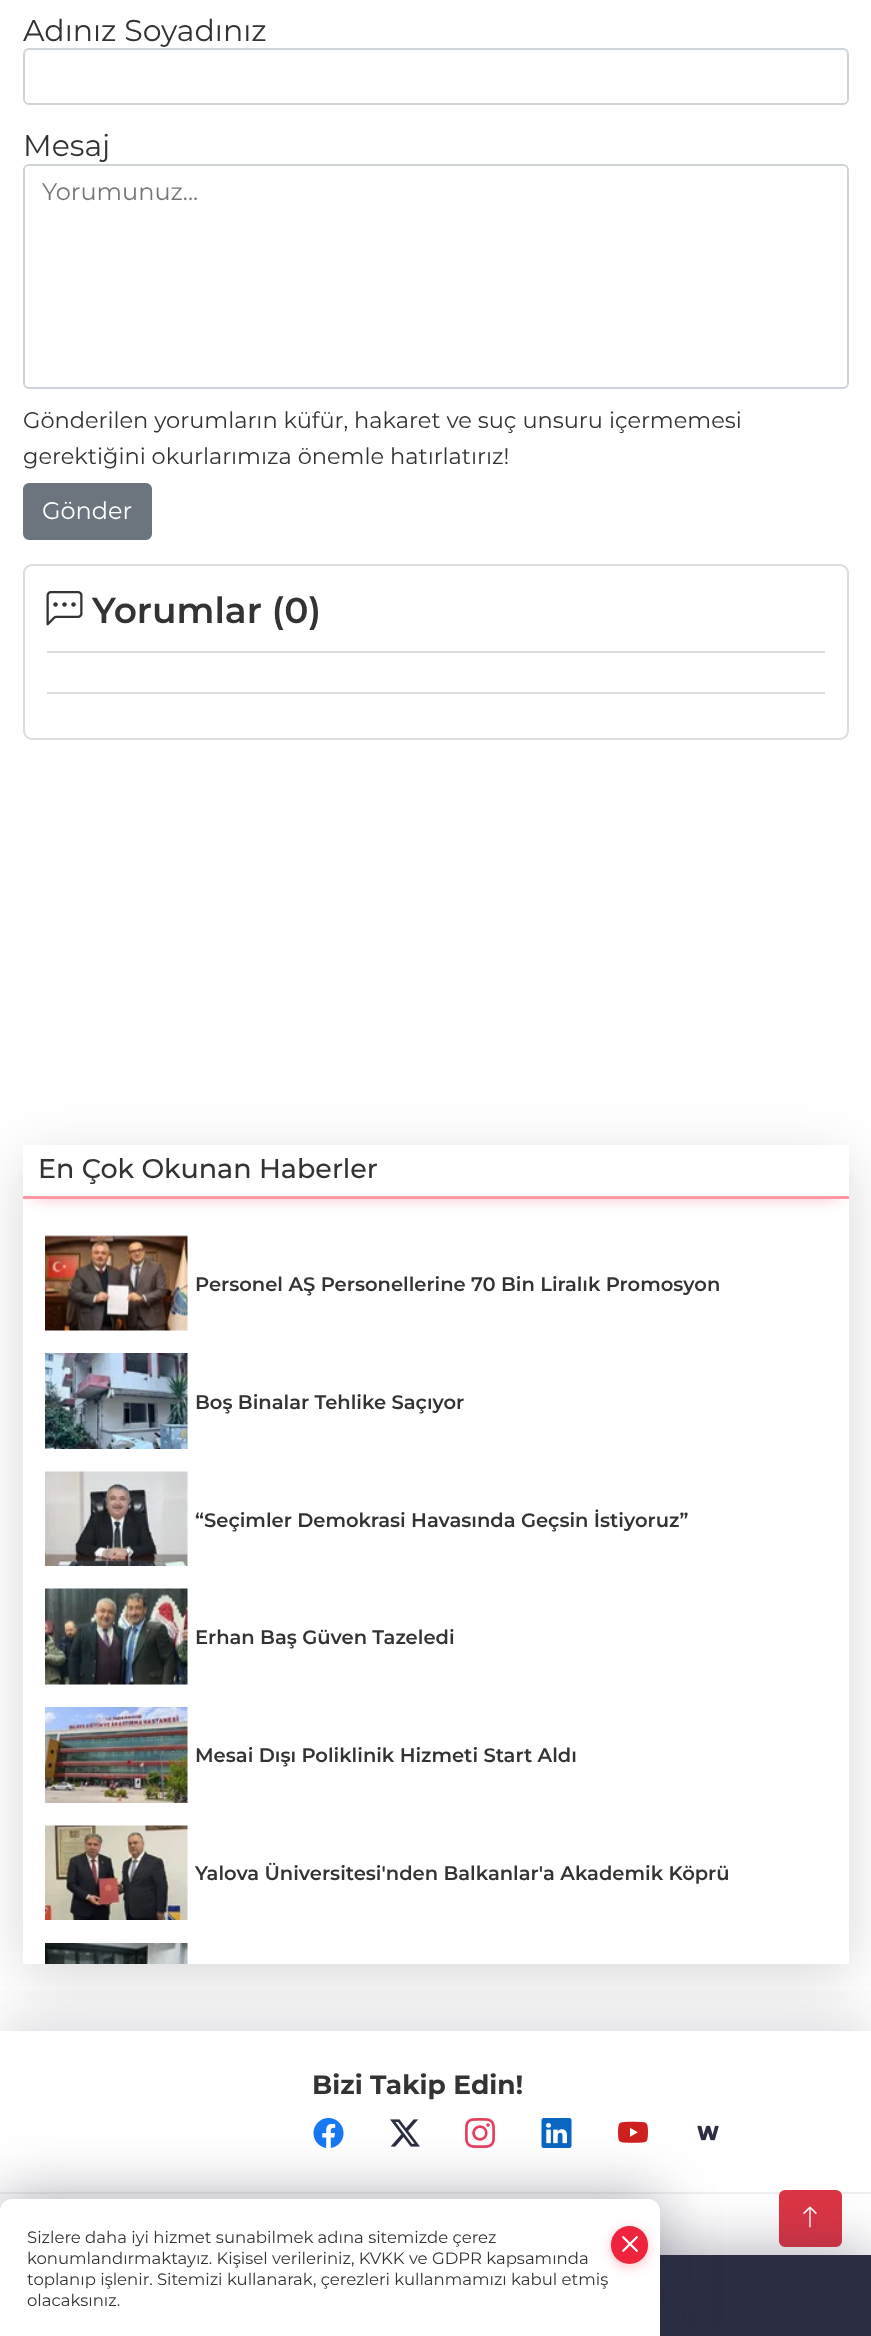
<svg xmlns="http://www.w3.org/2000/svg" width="871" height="2336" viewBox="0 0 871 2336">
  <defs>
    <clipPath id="clip1"><path d="M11 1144H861V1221H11ZM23 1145H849V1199H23Z" clip-rule="evenodd"/></clipPath>
    <clipPath id="clip2"><rect x="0" y="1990" width="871" height="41"/></clipPath>
  </defs>
  <rect width="100%" height="100%" fill="rgb(255,255,255)"/>
  <text x="23" y="41" font-family="Montserrat" font-size="30" fill="rgb(51,51,51)">Adınız Soyadınız</text>
  <rect x="24" y="49" width="824" height="55" rx="5" fill="none" stroke="rgb(206,212,218)" stroke-width="2"/>
  <text x="23" y="156" font-family="Montserrat" font-size="30" fill="rgb(51,51,51)">Mesaj</text>
  <rect x="24" y="165" width="824" height="223" rx="5" fill="none" stroke="rgb(206,212,218)" stroke-width="2"/>
  <text x="42" y="200" font-family="Montserrat" font-size="24" fill="rgb(117,117,117)">Yorumunuz...</text>
  <g font-family="Montserrat" font-size="22.5" fill="rgb(51,51,51)">
    <text>
      <tspan x="23" y="428">Gönderilen yorumların küfür, hakaret ve suç unsuru içermemesi</tspan>
      <tspan x="23" y="464">gerektiğini okurlarımıza önemle hatırlatırız!</tspan>
    </text>
  </g>
  <rect x="24" y="484" width="127" height="55" rx="5" fill="rgb(108,117,125)" stroke="rgb(108,117,125)" stroke-width="2"/>
  <text x="42" y="519" font-family="Montserrat" font-size="24" fill="rgb(255,255,255)">Gönder</text>
  <rect x="24" y="565" width="824" height="174" rx="8" fill="none" stroke="rgb(221,221,221)" stroke-width="2"/>
  <rect x="47" y="651" width="778" height="2" fill="rgb(221,221,221)"/>
  <image x="46" y="591" width="37" height="35" href="pic1.png"/>
  <text x="92" y="623" font-family="Montserrat" font-size="36" font-weight="600" fill="rgb(51,51,51)">Yorumlar (0)</text>
  <rect x="47" y="692" width="778" height="2" fill="rgb(221,221,221)"/>
  <rect x="23" y="1160" width="826" height="819" fill="rgba(0,0,0,0.15)" filter="blur(30px)"/>
  <rect x="23" y="1145" width="826" height="819" fill="rgb(255,255,255)"/>
  <g clip-path="url(#clip1)">
    <rect x="33" y="1166" width="806" height="33" fill="rgba(255,86,106,0.38)" filter="blur(7px)"/>
  </g>
  <rect x="23" y="1196" width="826" height="3" fill="rgba(255,81,103,0.6)"/>
  <text x="38" y="1178" font-family="Montserrat" font-size="27" font-weight="500" fill="rgb(51,51,51)">En Çok Okunan Haberler</text>
  <image x="45" y="1235" width="143" height="96" href="pic2.png"/>
  <text x="195" y="1291" font-family="Montserrat" font-size="19.5" font-weight="600" fill="rgb(51,51,51)">Personel AŞ Personellerine 70 Bin Liralık Promosyon</text>
  <image x="45" y="1353" width="143" height="96" href="pic3.png"/>
  <text x="195" y="1409" font-family="Montserrat" font-size="19.5" font-weight="600" fill="rgb(51,51,51)">Boş Binalar Tehlike Saçıyor</text>
  <image x="45" y="1471" width="143" height="95" href="pic4.png"/>
  <text x="195" y="1527" font-family="Montserrat" font-size="19.5" font-weight="600" fill="rgb(51,51,51)">“Seçimler Demokrasi Havasında Geçsin İstiyoruz”</text>
  <image x="45" y="1588" width="143" height="97" href="pic5.png"/>
  <text x="195" y="1644" font-family="Montserrat" font-size="19.5" font-weight="600" fill="rgb(51,51,51)">Erhan Baş Güven Tazeledi</text>
  <image x="45" y="1707" width="143" height="96" href="pic6.png"/>
  <text x="195" y="1762" font-family="Montserrat" font-size="19.5" font-weight="600" fill="rgb(51,51,51)">Mesai Dışı Poliklinik Hizmeti Start Aldı</text>
  <image x="45" y="1825" width="143" height="95" href="pic7.png"/>
  <text x="195" y="1880" font-family="Montserrat" font-size="19.5" font-weight="600" fill="rgb(51,51,51)">Yalova Üniversitesi'nden Balkanlar'a Akademik Köprü</text>
  <image x="45" y="1943" width="143" height="21" href="pic8.png"/>
  <g clip-path="url(#clip2)">
    <rect x="0" y="2027" width="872" height="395" fill="rgba(43,45,66,0.2)" filter="blur(28.5px)"/>
  </g>
  <rect x="0" y="2192" width="871" height="2" fill="rgb(239,239,239)"/>
  <text x="312" y="2094" font-family="Montserrat" font-size="26.5" font-weight="bold" fill="rgb(51,51,51)">Bizi Takip Edin!</text>
  <image x="313" y="2118" width="31" height="30" href="pic9.png"/>
  <image x="390" y="2119" width="30" height="28" href="pic10.png"/>
  <image x="465" y="2118" width="30" height="30" href="pic11.png"/>
  <image x="541" y="2118" width="31" height="30" href="pic12.png"/>
  <image x="618" y="2121" width="30" height="22" href="pic13.png"/>
  <image x="697" y="2125" width="22" height="16" href="pic14.png"/>
  <rect x="780" y="2191" width="61" height="55" rx="5" fill="rgb(220,53,69)" stroke="rgb(220,53,69)" stroke-width="2"/>
  <image x="803" y="2206" width="14" height="22" href="pic15.png"/>
  <rect x="0" y="2250" width="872" height="83" fill="rgba(43,45,66,0.36)" filter="blur(28.5px)"/>
  <rect x="660" y="2255" width="211" height="81" fill="rgb(43,45,66)"/>
  <rect x="0" y="2195" width="660" height="138" rx="12" fill="rgba(43,45,66,0.36)" filter="blur(28.5px)"/>
  <path d="M12 2199H648C654.5 2199 660 2204.5 660 2211V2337H0V2211C0 2204.5 5.5 2199 12 2199Z" fill="rgb(255,255,255)"/>
  <text x="27" y="2243" font-family="Montserrat" font-size="16.5" fill="rgb(51,51,51)">Sizlere daha iyi hizmet sunabilmek adına sitemizde çerez</text>
  <rect x="611" y="2229" width="37" height="38" rx="18.5" fill="rgba(255,86,106,0.38)" filter="blur(6px)"/>
  <rect x="611" y="2226" width="37" height="38" rx="18.5" fill="rgb(239,35,60)"/>
  <image x="622" y="2236" width="16" height="16" href="pic16.png"/>
  <g font-family="Montserrat" font-size="16.5" fill="rgb(51,51,51)">
    <text>
      <tspan x="27" y="2264">konumlandırmaktayız. Kişisel verileriniz, KVKK ve GDPR kapsamında</tspan>
      <tspan x="27" y="2285">toplanıp işlenir. Sitemizi kullanarak, çerezleri kullanmamızı kabul etmiş</tspan>
      <tspan x="27" y="2306">olacaksınız.</tspan>
    </text>
  </g>
</svg>
